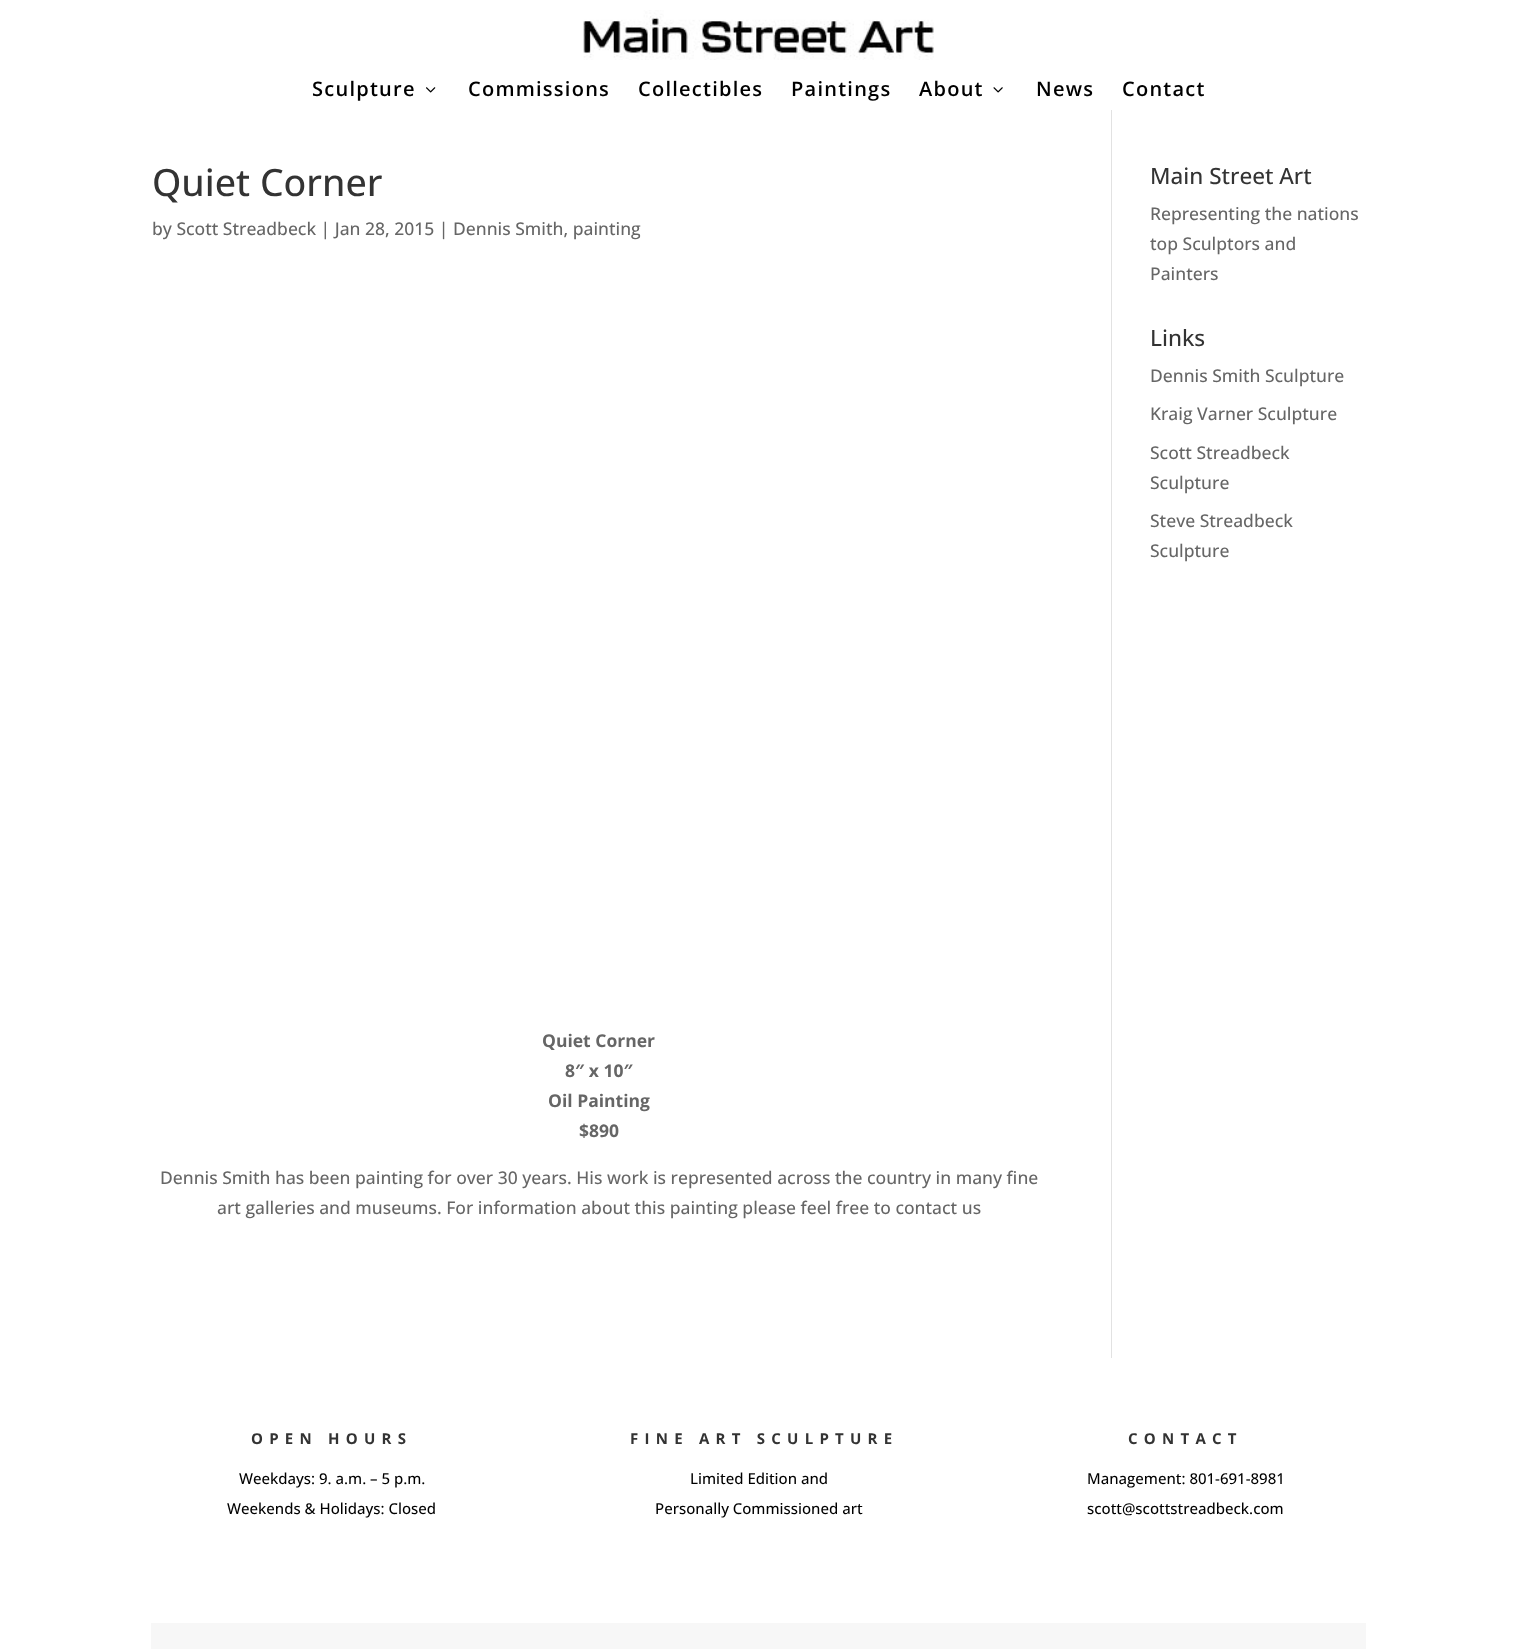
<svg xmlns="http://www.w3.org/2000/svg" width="1517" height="1649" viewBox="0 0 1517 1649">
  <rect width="100%" height="100%" fill="rgb(255,255,255)"/>
  <image x="583" y="10" width="351" height="50" href="pic1.png"/>
  <text x="312" y="96" font-family="Open Sans" font-size="20" font-weight="600" letter-spacing="1.25" fill="rgb(0,0,0)">Sculpture</text>
  <image x="426" y="87" width="10" height="6" href="pic2.png"/>
  <g font-family="Open Sans" font-size="20" font-weight="600" letter-spacing="1.25" fill="rgb(0,0,0)">
    <text x="468" y="96">Commissions</text>
    <text x="638" y="96">Collectibles</text>
    <text x="791" y="96">Paintings</text>
    <text x="919" y="96">About</text>
  </g>
  <image x="993" y="87" width="10" height="6" href="pic3.png"/>
  <g font-family="Open Sans" font-size="20" font-weight="600" letter-spacing="1.25" fill="rgb(0,0,0)">
    <text x="1036" y="96">News</text>
    <text x="1122" y="96">Contact</text>
  </g>
  <rect x="1111" y="110" width="1" height="1248" fill="rgb(226,226,226)"/>
  <text x="152" y="196" font-family="Open Sans" font-size="37.5" font-weight="500" fill="rgb(51,51,51)">Quiet Corner</text>
  <text x="152" y="235" font-family="Open Sans" font-size="17.5" font-weight="500" fill="rgb(102,102,102)">by Scott Streadbeck | Jan 28, 2015 | Dennis Smith, painting</text>
  <g font-family="Open Sans" font-size="17.5" font-weight="bold" fill="rgb(102,102,102)">
    <text x="542" y="1047">Quiet Corner</text>
    <text x="565" y="1077">8″ x 10″</text>
    <text x="548" y="1107">Oil Painting</text>
    <text x="579" y="1137">$890</text>
  </g>
  <g font-family="Open Sans" font-size="17.5" font-weight="500" fill="rgb(102,102,102)">
    <text x="160" y="1184">Dennis Smith has been painting for over 30 years. His work is represented across the country in many fine</text>
    <text x="217" y="1214">art galleries and museums. For information about this painting please feel free to contact us</text>
  </g>
  <text x="1150" y="184" font-family="Open Sans" font-size="22.5" font-weight="500" fill="rgb(51,51,51)">Main Street Art</text>
  <g font-family="Open Sans" font-size="17.5" font-weight="500" fill="rgb(102,102,102)">
    <text>
      <tspan x="1150" y="220">Representing the nations</tspan>
      <tspan x="1150" y="250">top Sculptors and</tspan>
      <tspan x="1150" y="280">Painters</tspan>
    </text>
  </g>
  <text x="1150" y="346" font-family="Open Sans" font-size="22.5" font-weight="500" fill="rgb(51,51,51)">Links</text>
  <g font-family="Open Sans" font-size="17.5" font-weight="500" fill="rgb(102,102,102)">
    <text x="1150" y="382">Dennis Smith Sculpture</text>
    <text x="1150" y="420">Kraig Varner Sculpture</text>
    <text>
      <tspan x="1150" y="459">Scott Streadbeck</tspan>
      <tspan x="1150" y="489">Sculpture</tspan>
    </text>
    <text>
      <tspan x="1150" y="527">Steve Streadbeck</tspan>
      <tspan x="1150" y="557">Sculpture</tspan>
    </text>
  </g>
  <text x="251" y="1444" font-family="Open Sans" font-size="15" font-weight="bold" letter-spacing="6.25" fill="rgb(51,51,51)">OPEN HOURS</text>
  <g font-family="Open Sans" font-size="15" font-weight="500" fill="rgb(0,0,0)">
    <text x="239" y="1484">Weekdays: 9. a.m. – 5 p.m.</text>
    <text x="227" y="1514">Weekends &amp; Holidays: Closed</text>
  </g>
  <text x="630" y="1444" font-family="Open Sans" font-size="15" font-weight="bold" letter-spacing="6.25" fill="rgb(51,51,51)">FINE ART SCULPTURE</text>
  <g font-family="Open Sans" font-size="15" font-weight="500" fill="rgb(0,0,0)">
    <text x="690" y="1484">Limited Edition and</text>
    <text x="655" y="1514">Personally Commissioned art</text>
  </g>
  <text x="1128" y="1444" font-family="Open Sans" font-size="15" font-weight="bold" letter-spacing="6.25" fill="rgb(51,51,51)">CONTACT</text>
  <g font-family="Open Sans" font-size="15" font-weight="500" fill="rgb(0,0,0)">
    <text x="1087" y="1484">Management: 801-691-8981</text>
    <text x="1087" y="1514">scott@scottstreadbeck.com</text>
  </g>
  <rect x="151" y="1623" width="1215" height="26" fill="rgb(247,247,247)"/>
</svg>
